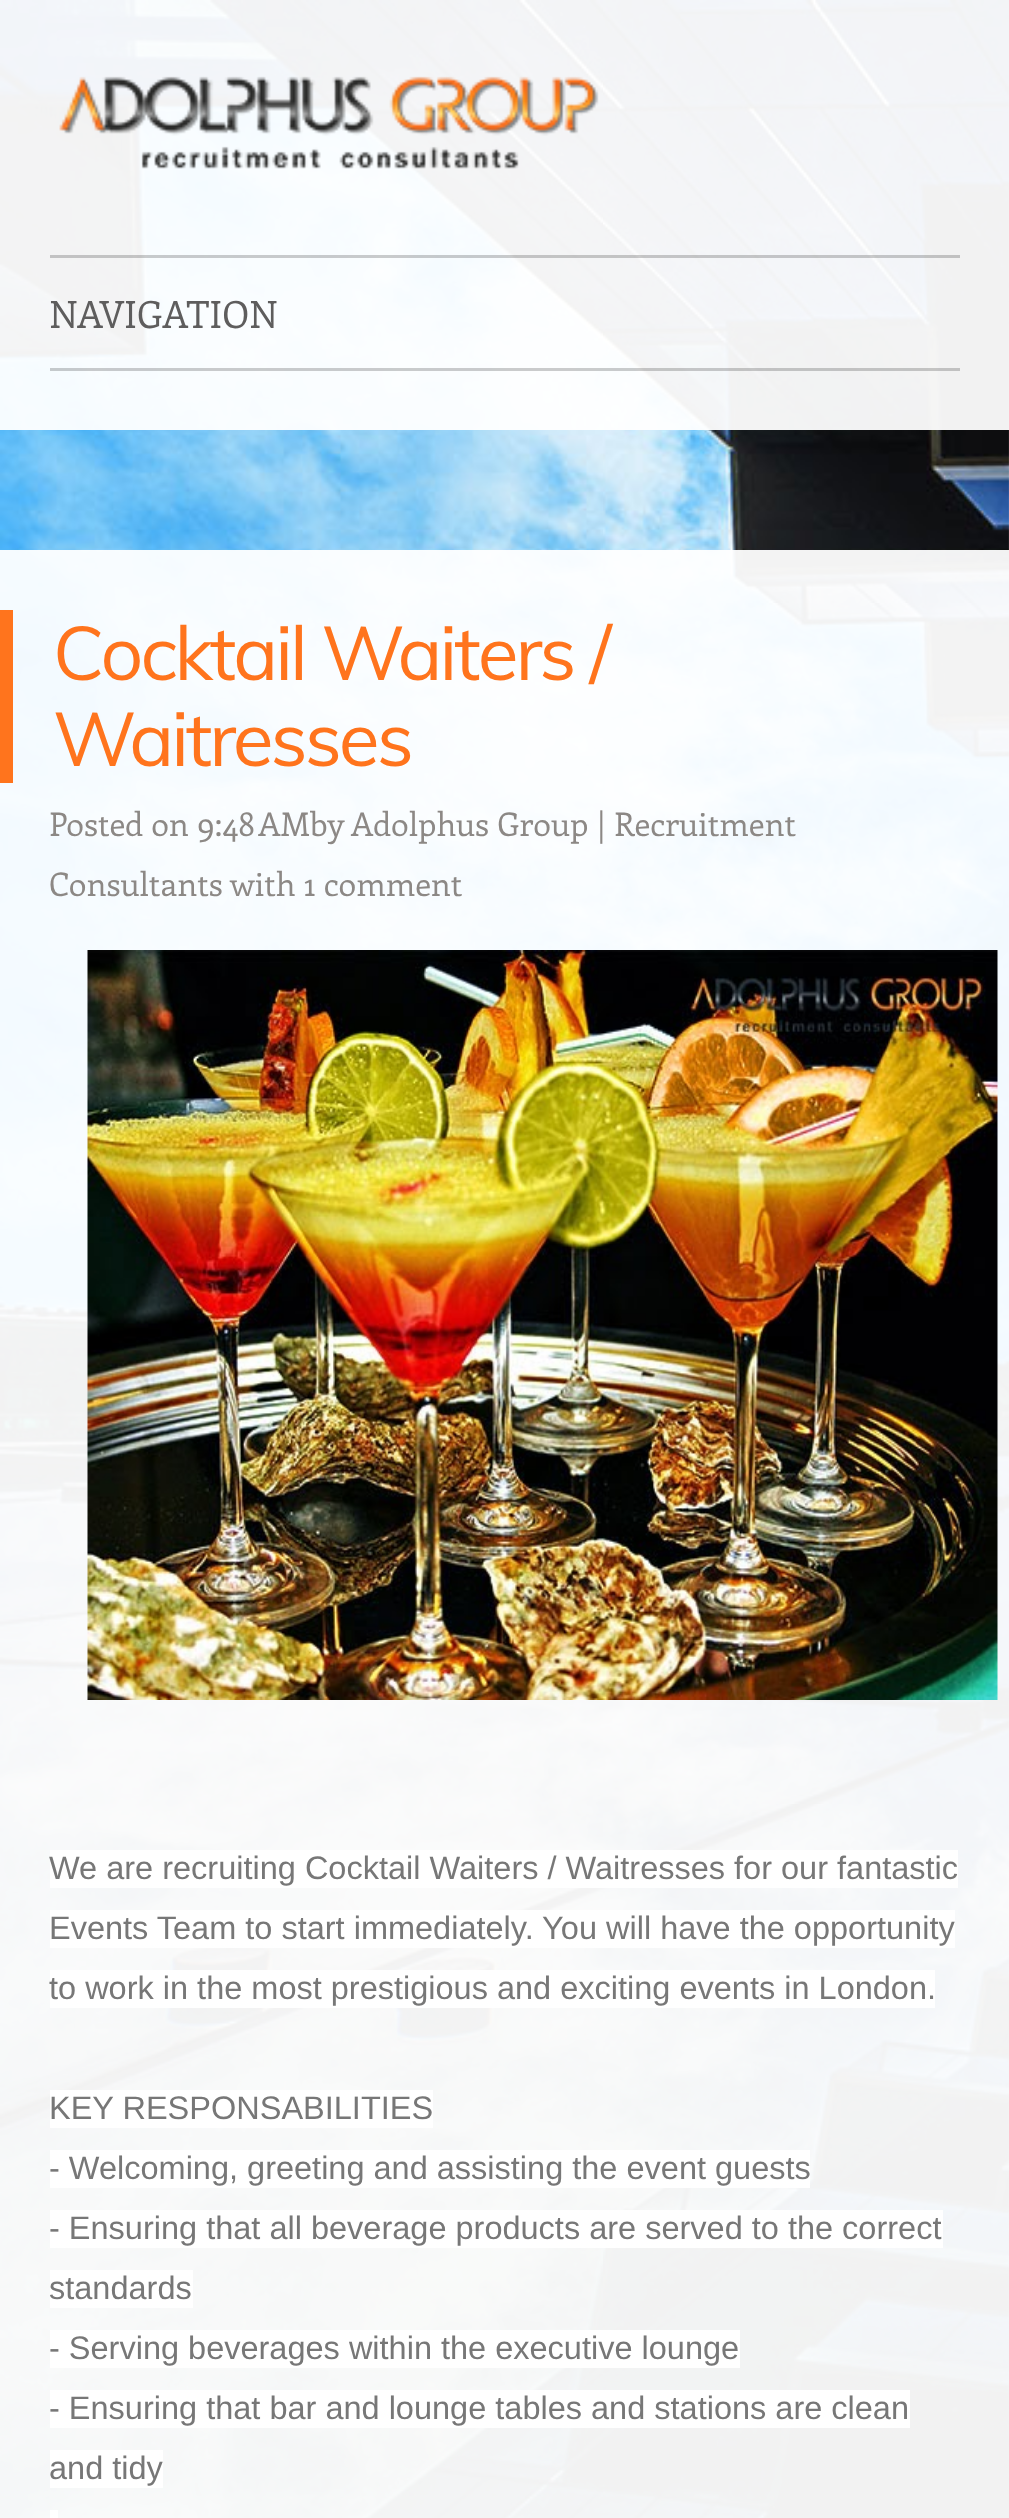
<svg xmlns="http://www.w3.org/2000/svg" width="1009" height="2518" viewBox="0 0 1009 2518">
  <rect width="100%" height="100%" fill="rgb(255,255,255)"/>
  <image x="0" y="0" width="1009" height="2518" href="pic1.png"/>
  <rect x="0" y="0" width="1009" height="430" fill="rgba(255,255,255,0.95)"/>
  <image x="59" y="76" width="540" height="93" href="pic2.png"/>
  <rect x="50" y="255" width="910" height="3" fill="rgba(0,0,0,0.2)"/>
  <rect x="50" y="368" width="910" height="3" fill="rgba(0,0,0,0.2)"/>
  <text x="49" y="328" font-family="Enriqueta" font-size="37.5" fill="rgb(94,93,93)">NAVIGATION</text>
  <rect x="0" y="550" width="1009" height="1968" fill="rgba(255,255,255,0.95)"/>
  <rect x="0" y="610" width="13" height="173" fill="rgb(255,116,29)"/>
  <g font-family="Muli" font-size="75" letter-spacing="-3" fill="rgb(255,116,29)">
    <text>
      <tspan x="53" y="680">Cocktail Waiters /</tspan>
      <tspan x="53" y="766">Waitresses</tspan>
    </text>
  </g>
  <g font-family="Enriqueta" font-size="32.5" fill="rgb(140,136,133)">
    <text x="49" y="836">Posted on 9:48 AMby</text>
    <text x="351" y="836">Adolphus Group | Recruitment</text>
    <text x="49" y="896">Consultants</text>
    <text x="230" y="896">with 1 comment</text>
  </g>
  <image x="87" y="950" width="911" height="750" href="pic3.png"/>
  <rect x="50" y="1850" width="908" height="38" fill="rgb(255,255,255)"/>
  <text x="49" y="1879" font-family="Liberation Sans" font-size="32.5" fill="rgb(119,119,119)">We are recruiting Cocktail Waiters / Waitresses for our fantastic</text>
  <rect x="50" y="1910" width="905" height="38" fill="rgb(255,255,255)"/>
  <text x="49" y="1939" font-family="Liberation Sans" font-size="32.5" fill="rgb(119,119,119)">Events Team to start immediately. You will have the opportunity</text>
  <rect x="50" y="1970" width="885" height="38" fill="rgb(255,255,255)"/>
  <text x="49" y="1999" font-family="Liberation Sans" font-size="32.5" fill="rgb(119,119,119)">to work in the most prestigious and exciting events in London.</text>
  <rect x="50" y="2090" width="383" height="38" fill="rgb(255,255,255)"/>
  <text x="49" y="2119" font-family="Liberation Sans" font-size="32.5" fill="rgb(119,119,119)">KEY RESPONSABILITIES</text>
  <rect x="50" y="2150" width="760" height="38" fill="rgb(255,255,255)"/>
  <text x="49" y="2179" font-family="Liberation Sans" font-size="32.5" fill="rgb(119,119,119)">- Welcoming, greeting and assisting the event guests</text>
  <rect x="50" y="2210" width="893" height="38" fill="rgb(255,255,255)"/>
  <text x="49" y="2239" font-family="Liberation Sans" font-size="32.5" fill="rgb(119,119,119)">- Ensuring that all beverage products are served to the correct</text>
  <rect x="50" y="2270" width="143" height="38" fill="rgb(255,255,255)"/>
  <text x="49" y="2299" font-family="Liberation Sans" font-size="32.5" fill="rgb(119,119,119)">standards</text>
  <rect x="50" y="2330" width="690" height="38" fill="rgb(255,255,255)"/>
  <text x="49" y="2359" font-family="Liberation Sans" font-size="32.5" fill="rgb(119,119,119)">- Serving beverages within the executive lounge</text>
  <rect x="50" y="2390" width="860" height="38" fill="rgb(255,255,255)"/>
  <text x="49" y="2419" font-family="Liberation Sans" font-size="32.5" fill="rgb(119,119,119)">- Ensuring that bar and lounge tables and stations are clean</text>
  <rect x="50" y="2450" width="113" height="38" fill="rgb(255,255,255)"/>
  <text x="49" y="2479" font-family="Liberation Sans" font-size="32.5" fill="rgb(119,119,119)">and tidy</text>
  <rect x="50" y="2510" width="8" height="8" fill="rgb(255,255,255)"/>
</svg>
